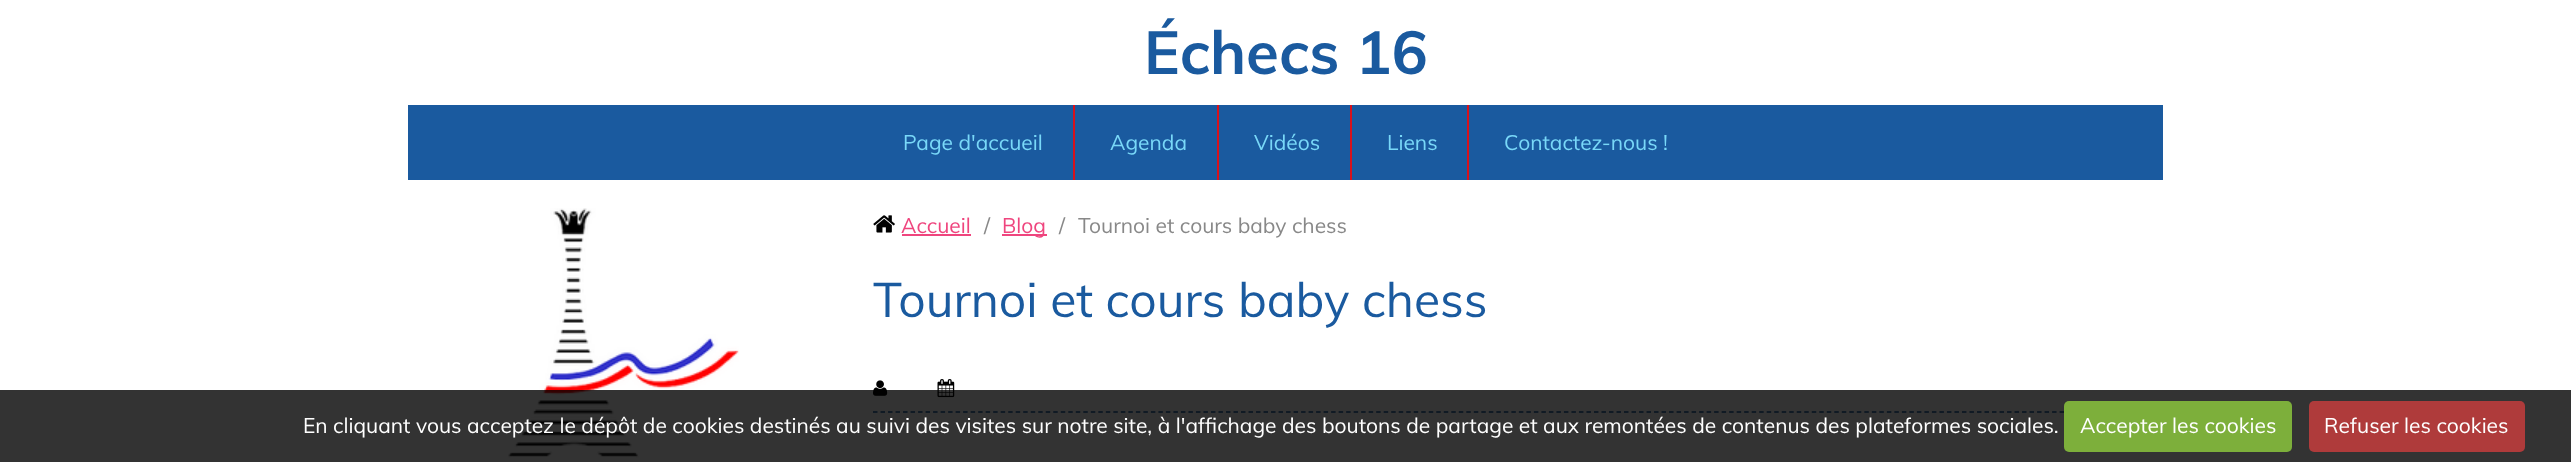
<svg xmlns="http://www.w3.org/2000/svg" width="2571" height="462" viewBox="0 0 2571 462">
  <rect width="100%" height="100%" fill="rgb(255,255,255)"/>
  <text x="1144" y="74" font-family="Muli" font-size="60" font-weight="bold" fill="rgb(26,90,159)">Échecs 16</text>
  <rect x="408" y="105" width="1755" height="75" fill="rgb(26,90,159)"/>
  <rect x="1073" y="105" width="2" height="75" fill="rgb(216,17,27)"/>
  <text x="903" y="150" font-family="Muli" font-size="21" fill="rgb(121,216,248)">Page d'accueil</text>
  <rect x="1217" y="105" width="2" height="75" fill="rgb(216,17,27)"/>
  <text x="1110" y="150" font-family="Muli" font-size="21" fill="rgb(121,216,248)">Agenda</text>
  <rect x="1350" y="105" width="2" height="75" fill="rgb(216,17,27)"/>
  <text x="1254" y="150" font-family="Muli" font-size="21" fill="rgb(121,216,248)">Vidéos</text>
  <rect x="1467" y="105" width="2" height="75" fill="rgb(216,17,27)"/>
  <g font-family="Muli" font-size="21" fill="rgb(121,216,248)">
    <text x="1387" y="150">Liens</text>
    <text x="1504" y="150">Contactez-nous !</text>
  </g>
  <image x="508" y="208" width="231" height="250" href="pic1.png"/>
  <image x="873" y="215" width="22" height="18" href="pic2.png"/>
  <text x="901" y="233" font-family="Muli" font-size="21" fill="rgb(239,69,126)">Accueil</text>
  <rect x="902" y="234" width="69" height="2" fill="rgb(239,69,126)"/>
  <text x="984" y="233" font-family="Muli" font-size="21" fill="rgb(136,136,136)">/</text>
  <rect x="1002" y="234" width="45" height="2" fill="rgb(239,69,126)"/>
  <text x="1002" y="233" font-family="Muli" font-size="21" fill="rgb(239,69,126)">Blog</text>
  <g font-family="Muli" font-size="21" fill="rgb(136,136,136)">
    <text x="1059" y="233">/</text>
    <text x="1078" y="233">Tournoi et cours baby chess</text>
  </g>
  <text x="873" y="317" font-family="Muli" font-size="48" fill="rgb(26,90,159)">Tournoi et cours baby chess</text>
  <path d="M873 412H2148" fill="none" stroke="rgb(26,90,159)" stroke-width="1.5" stroke-dasharray="4.5 3.01"/>
  <image x="873" y="380" width="15" height="16" href="pic3.png"/>
  <image x="937" y="379" width="18" height="19" href="pic4.png"/>
  <rect x="0" y="390" width="2571" height="72" fill="rgba(0,0,0,0.8)"/>
  <text x="303" y="433" font-family="Muli" font-size="21" fill="rgb(255,255,255)">En cliquant vous acceptez le dépôt de cookies destinés au suivi des visites sur notre site, à l'affichage des boutons de partage et aux remontées de contenus des plateformes sociales.</text>
  <rect x="2064" y="401" width="228" height="51" rx="5" fill="rgb(125,175,59)"/>
  <text x="2080" y="433" font-family="Muli" font-size="21" fill="rgb(255,255,255)">Accepter les cookies</text>
  <rect x="2309" y="401" width="216" height="51" rx="5" fill="rgb(175,59,59)"/>
  <text x="2324" y="433" font-family="Muli" font-size="21" fill="rgb(255,255,255)">Refuser les cookies</text>
</svg>
